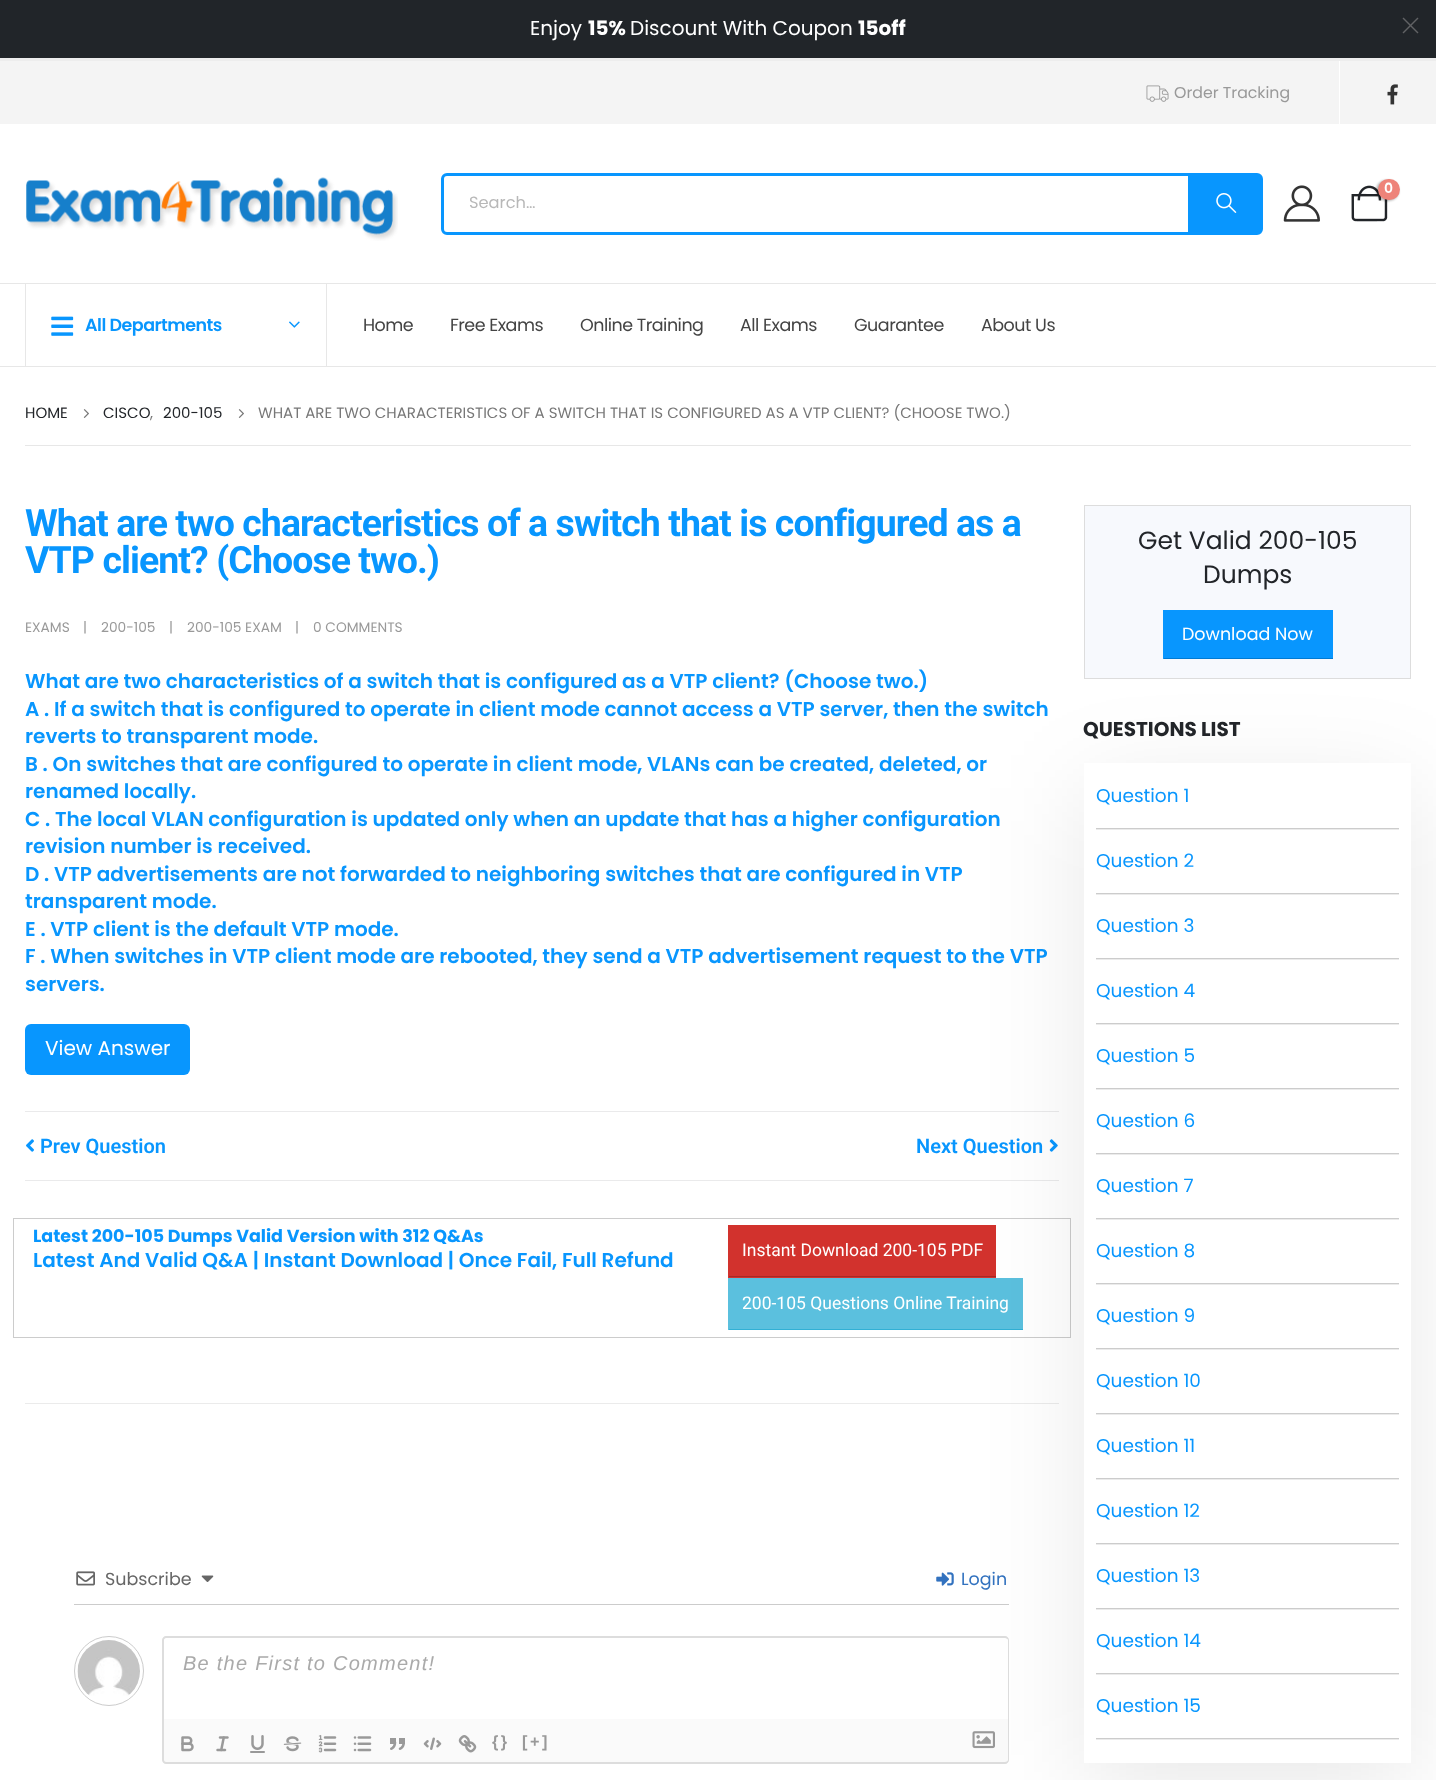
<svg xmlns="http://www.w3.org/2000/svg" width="1436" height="1780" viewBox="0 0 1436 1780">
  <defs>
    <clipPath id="clip1"><path d="M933 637H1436V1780H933ZM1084 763H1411V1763H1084Z" clip-rule="evenodd"/></clipPath>
  </defs>
  <rect width="100%" height="100%" fill="rgb(255,255,255)"/>
  <rect x="0" y="0" width="1436" height="58" fill="rgb(33,37,41)"/>
  <text x="530" y="35" font-family="Poppins" font-size="20" fill="rgb(255,255,255)">Enjoy</text>
  <text x="588" y="35" font-family="Poppins" font-size="20" font-weight="bold" fill="rgb(255,255,255)">15%</text>
  <text x="630" y="35" font-family="Poppins" font-size="20" fill="rgb(255,255,255)">Discount With Coupon</text>
  <text x="858" y="35" font-family="Poppins" font-size="20" font-weight="bold" fill="rgb(255,255,255)">15off</text>
  <path d="M1403.5 17.5L1418.5 32.5L1417.5 33.5L1402.5 18.5Z" fill="rgb(97,98,100)"/>
  <path d="M1417.5 17.5L1418.5 18.5L1403.5 33.5L1402.5 32.5Z" fill="rgb(97,98,100)"/>
  <rect x="0" y="58" width="1436" height="3" fill="rgb(237,237,237)"/>
  <rect x="0" y="61" width="1436" height="63" fill="rgb(244,244,244)"/>
  <image x="1146" y="85" width="23" height="17" href="pic1.png"/>
  <text x="1174" y="98" font-family="Poppins" font-size="15.75" fill="rgb(153,153,153)">Order Tracking</text>
  <rect x="1339" y="61" width="1" height="63" fill="rgb(255,255,255)"/>
  <image x="1387" y="84" width="11" height="21" href="pic2.png"/>
  <rect x="0" y="283" width="1436" height="1" fill="rgb(231,231,231)"/>
  <image x="26" y="177" width="372" height="64" href="pic3.png"/>
  <rect x="442.5" y="174.5" width="819" height="59" rx="4.5" fill="none" stroke="rgb(8,150,254)" stroke-width="3"/>
  <text x="469" y="208" font-family="Poppins" font-size="16.25" fill="rgb(184,184,184)">Search…</text>
  <rect x="1188" y="176" width="72" height="56" fill="rgb(8,150,254)"/>
  <image x="1216" y="193" width="21" height="20" href="pic4.png"/>
  <image x="1283" y="185" width="37" height="37" href="pic5.png"/>
  <image x="1351" y="185" width="37" height="37" href="pic6.png"/>
  <rect x="1376" y="180" width="23" height="21" rx="10.5" fill="rgba(0,0,0,0.3)" filter="blur(1px)"/>
  <rect x="1378" y="179" width="22" height="21" rx="10.5" fill="rgb(238,131,121)"/>
  <text x="1384" y="193" font-family="Poppins" font-size="14" font-weight="600" fill="rgb(255,255,255)">0</text>
  <rect x="326" y="284" width="1" height="82" fill="rgb(231,231,231)"/>
  <rect x="25" y="284" width="1" height="82" fill="rgb(231,231,231)"/>
  <image x="51" y="316" width="23" height="20" href="pic7.png"/>
  <text x="85" y="331" font-family="Poppins" font-size="17.5" font-weight="600" letter-spacing="-0.5" fill="rgb(8,150,254)">All Departments</text>
  <image x="289" y="321" width="11" height="7" href="pic8.png"/>
  <g font-family="Poppins" font-size="17.5" letter-spacing="-0.5" fill="rgb(68,68,68)">
    <text x="363" y="331">Home</text>
    <text x="450" y="331">Free Exams</text>
    <text x="580" y="331">Online Training</text>
    <text x="740" y="331">All Exams</text>
    <text x="854" y="331">Guarantee</text>
    <text x="981" y="331">About Us</text>
  </g>
  <rect x="0" y="366" width="1436" height="1" fill="rgb(231,231,231)"/>
  <text x="25" y="418" font-family="Poppins" font-size="15" fill="rgb(34,37,41)">HOME</text>
  <image x="83" y="409" width="6" height="9" href="pic9.png"/>
  <g font-family="Poppins" font-size="15" fill="rgb(34,37,41)">
    <text x="103" y="418">CISCO</text>
    <text x="163" y="418">200-105</text>
  </g>
  <image x="238" y="409" width="6" height="9" href="pic9.png"/>
  <g font-family="Poppins" font-size="15" fill="rgb(119,119,119)">
    <text x="150" y="418">,</text>
    <text x="258" y="418">WHAT ARE TWO CHARACTERISTICS OF A SWITCH THAT IS CONFIGURED AS A VTP CLIENT? (CHOOSE TWO.)</text>
  </g>
  <rect x="25" y="445" width="1386" height="1" fill="rgb(231,231,231)"/>
  <g font-family="Roboto" font-size="37.5" font-weight="bold" letter-spacing="-0.95" fill="rgb(8,150,254)">
    <text>
      <tspan x="25" y="536">What are two characteristics of a switch that is configured as a</tspan>
      <tspan x="25" y="573">VTP client? (Choose two.)</tspan>
    </text>
  </g>
  <g font-family="Poppins" font-size="13.75" fill="rgb(153,153,153)">
    <text x="25" y="632">EXAMS</text>
    <text x="83" y="632">|</text>
    <text x="101" y="632">200-105</text>
    <text x="169" y="632">|</text>
    <text x="187" y="632">200-105 EXAM</text>
    <text x="295" y="632">|</text>
    <text x="313" y="632">0 COMMENTS</text>
  </g>
  <g font-family="Poppins" font-size="20" font-weight="600" fill="rgb(8,150,254)">
    <text>
      <tspan x="25" y="688">What are two characteristics of a switch that is configured as a VTP client? (Choose two.)</tspan>
      <tspan x="25" y="716">A . If a switch that is configured to operate in client mode cannot access a VTP server, then the switch</tspan>
      <tspan x="25" y="743">reverts to transparent mode.</tspan>
      <tspan x="25" y="771">B . On switches that are configured to operate in client mode, VLANs can be created, deleted, or</tspan>
      <tspan x="25" y="798">renamed locally.</tspan>
      <tspan x="25" y="826">C . The local VLAN configuration is updated only when an update that has a higher configuration</tspan>
      <tspan x="25" y="853">revision number is received.</tspan>
      <tspan x="25" y="881">D . VTP advertisements are not forwarded to neighboring switches that are configured in VTP</tspan>
      <tspan x="25" y="908">transparent mode.</tspan>
      <tspan x="25" y="936">E . VTP client is the default VTP mode.</tspan>
      <tspan x="25" y="963">F . When switches in VTP client mode are rebooted, they send a VTP advertisement request to the VTP</tspan>
      <tspan x="25" y="991">servers.</tspan>
    </text>
  </g>
  <rect x="25" y="1024" width="165" height="51" rx="6" fill="rgb(8,150,254)"/>
  <text x="45" y="1055" font-family="Poppins" font-size="20" fill="rgb(255,255,255)">View Answer</text>
  <rect x="25" y="1111" width="1034" height="1" fill="rgb(234,234,235)"/>
  <rect x="25" y="1180" width="1034" height="1" fill="rgb(234,234,235)"/>
  <image x="26" y="1139" width="8" height="13" href="pic10.png"/>
  <g font-family="Roboto" font-size="20" font-weight="600" fill="rgb(8,150,254)">
    <text x="40" y="1153">Prev Question</text>
    <text x="916" y="1153">Next Question</text>
  </g>
  <image x="1049" y="1139" width="9" height="13" href="pic11.png"/>
  <rect x="13.5" y="1218.5" width="1057" height="119" fill="none" stroke="rgb(204,204,204)"/>
  <text x="33" y="1242" font-family="Poppins" font-size="17.5" font-weight="bold" fill="rgb(8,150,254)">Latest 200-105 Dumps Valid Version with 312 Q&amp;As</text>
  <text x="33" y="1267" font-family="Poppins" font-size="20" font-weight="600" fill="rgb(8,150,254)">Latest And Valid Q&amp;A | Instant Download | Once Fail, Full Refund</text>
  <rect x="729" y="1225" width="267" height="53" fill="rgb(210,50,45)"/>
  <rect x="728" y="1276" width="268" height="1" fill="rgb(168,40,36)"/>
  <rect x="728" y="1225" width="1" height="53" fill="rgb(210,50,45)"/>
  <text x="742" y="1256" font-family="Roboto" font-size="17.5" fill="rgb(255,255,255)">Instant Download 200-105 PDF</text>
  <rect x="729" y="1278" width="294" height="51" fill="rgb(91,192,222)"/>
  <rect x="728" y="1329" width="295" height="1" fill="rgb(49,176,213)"/>
  <rect x="728" y="1278" width="1" height="52" fill="rgb(91,192,222)"/>
  <text x="742" y="1309" font-family="Roboto" font-size="17.5" fill="rgb(255,255,255)">200-105 Questions Online Training</text>
  <rect x="25" y="1403" width="1034" height="1" fill="rgb(235,235,235)"/>
  <rect x="74" y="1604" width="935" height="1" fill="rgb(204,204,204)"/>
  <image x="76" y="1571" width="19" height="15" href="pic12.png"/>
  <text x="105" y="1585" font-family="Poppins" font-size="17.5" fill="rgb(102,102,102)">Subscribe</text>
  <image x="201" y="1575" width="13" height="7" href="pic13.png"/>
  <image x="936" y="1572" width="18" height="14" href="pic14.png"/>
  <text x="961" y="1585" font-family="Poppins" font-size="17.5" fill="rgb(50,114,191)">Login</text>
  <circle cx="109" cy="1671" r="34.5" fill="none" stroke="rgb(204,204,204)"/>
  <image x="77" y="1640" width="63" height="56" href="pic15.png"/>
  <path d="M166 1636H1005C1007 1636 1009 1638 1009 1640V1719H162V1640C162 1638 164 1636 166 1636ZM166 1638H1005C1006 1638 1008 1639 1008 1640V1719H164V1640C164 1639 165 1638 166 1638Z" fill="rgb(221,221,221)" fill-rule="evenodd"/>
  <text x="183" y="1670" font-family="Liberation Sans" font-size="20" font-style="italic" letter-spacing="1.25" fill="rgb(170,170,170)">Be the First to Comment!</text>
  <path d="M163 1719H1009V1760C1009 1762 1007 1764 1005 1764H167C165 1764 163 1762 163 1760Z" fill="rgb(250,250,250)"/>
  <path d="M162 1719H1009V1760C1009 1762 1007 1764 1005 1764H166C164 1764 162 1762 162 1760ZM164 1719H1008V1760C1008 1761 1006 1762 1005 1762H166C165 1762 164 1761 164 1760Z" fill="rgb(221,221,221)" fill-rule="evenodd"/>
  <image x="181" y="1736" width="13" height="16" href="pic16.png"/>
  <image x="216" y="1736" width="13" height="16" href="pic17.png"/>
  <image x="250" y="1735" width="15" height="18" href="pic18.png"/>
  <image x="283" y="1736" width="19" height="16" href="pic19.png"/>
  <image x="318" y="1735" width="19" height="18" href="pic20.png"/>
  <image x="353" y="1736" width="19" height="16" href="pic21.png"/>
  <image x="390" y="1738" width="15" height="12" href="pic22.png"/>
  <image x="423" y="1737" width="19" height="13" href="pic23.png"/>
  <image x="458" y="1735" width="19" height="18" href="pic24.png"/>
  <g font-family="Liberation Sans" font-size="16.25" font-weight="bold" letter-spacing="2.5" fill="rgb(153,153,153)">
    <text x="492" y="1747">{}</text>
    <text x="522" y="1747">[+]</text>
  </g>
  <image x="972" y="1731" width="23" height="18" href="pic25.png"/>
  <rect x="1084.5" y="505.5" width="326" height="173" fill="rgb(247,249,253)" stroke="rgb(221,221,221)"/>
  <g font-family="Poppins" font-size="25" fill="rgb(34,37,41)">
    <text x="1138" y="549">Get Valid 200-105</text>
    <text x="1203" y="583">Dumps</text>
  </g>
  <rect x="1164" y="610" width="169" height="48" fill="rgb(8,150,254)"/>
  <rect x="1163" y="658" width="170" height="1" fill="rgb(1,122,211)"/>
  <rect x="1163" y="610" width="1" height="49" fill="rgb(8,150,254)"/>
  <text x="1182" y="640" font-family="Poppins" font-size="17.5" fill="rgb(255,255,255)">Download Now</text>
  <g clip-path="url(#clip1)">
    <rect x="1084" y="788" width="327" height="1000" fill="rgba(0,0,0,0.09)" filter="blur(50px)"/>
  </g>
  <text x="1083" y="736" font-family="Poppins" font-size="20" font-weight="bold" fill="rgb(34,37,41)">QUESTIONS LIST</text>
  <rect x="1096" y="828" width="303" height="1" fill="rgb(204,204,204)"/>
  <text x="1096" y="802" font-family="Poppins" font-size="18.5" fill="rgb(8,150,254)">Question 1</text>
  <rect x="1096" y="829" width="303" height="1" fill="rgb(235,235,235)"/>
  <rect x="1096" y="893" width="303" height="1" fill="rgb(204,204,204)"/>
  <text x="1096" y="867" font-family="Poppins" font-size="18.5" fill="rgb(8,150,254)">Question 2</text>
  <rect x="1096" y="894" width="303" height="1" fill="rgb(235,235,235)"/>
  <rect x="1096" y="958" width="303" height="1" fill="rgb(204,204,204)"/>
  <text x="1096" y="932" font-family="Poppins" font-size="18.5" fill="rgb(8,150,254)">Question 3</text>
  <rect x="1096" y="959" width="303" height="1" fill="rgb(235,235,235)"/>
  <rect x="1096" y="1023" width="303" height="1" fill="rgb(204,204,204)"/>
  <text x="1096" y="997" font-family="Poppins" font-size="18.5" fill="rgb(8,150,254)">Question 4</text>
  <rect x="1096" y="1024" width="303" height="1" fill="rgb(235,235,235)"/>
  <rect x="1096" y="1088" width="303" height="1" fill="rgb(204,204,204)"/>
  <text x="1096" y="1062" font-family="Poppins" font-size="18.5" fill="rgb(8,150,254)">Question 5</text>
  <rect x="1096" y="1089" width="303" height="1" fill="rgb(235,235,235)"/>
  <rect x="1096" y="1153" width="303" height="1" fill="rgb(204,204,204)"/>
  <text x="1096" y="1127" font-family="Poppins" font-size="18.5" fill="rgb(8,150,254)">Question 6</text>
  <rect x="1096" y="1154" width="303" height="1" fill="rgb(235,235,235)"/>
  <rect x="1096" y="1218" width="303" height="1" fill="rgb(204,204,204)"/>
  <text x="1096" y="1192" font-family="Poppins" font-size="18.5" fill="rgb(8,150,254)">Question 7</text>
  <rect x="1096" y="1219" width="303" height="1" fill="rgb(235,235,235)"/>
  <rect x="1096" y="1283" width="303" height="1" fill="rgb(204,204,204)"/>
  <text x="1096" y="1257" font-family="Poppins" font-size="18.5" fill="rgb(8,150,254)">Question 8</text>
  <rect x="1096" y="1284" width="303" height="1" fill="rgb(235,235,235)"/>
  <rect x="1096" y="1348" width="303" height="1" fill="rgb(204,204,204)"/>
  <text x="1096" y="1322" font-family="Poppins" font-size="18.5" fill="rgb(8,150,254)">Question 9</text>
  <rect x="1096" y="1349" width="303" height="1" fill="rgb(235,235,235)"/>
  <rect x="1096" y="1413" width="303" height="1" fill="rgb(204,204,204)"/>
  <text x="1096" y="1387" font-family="Poppins" font-size="18.5" fill="rgb(8,150,254)">Question 10</text>
  <rect x="1096" y="1414" width="303" height="1" fill="rgb(235,235,235)"/>
  <rect x="1096" y="1478" width="303" height="1" fill="rgb(204,204,204)"/>
  <text x="1096" y="1452" font-family="Poppins" font-size="18.5" fill="rgb(8,150,254)">Question 11</text>
  <rect x="1096" y="1479" width="303" height="1" fill="rgb(235,235,235)"/>
  <rect x="1096" y="1543" width="303" height="1" fill="rgb(204,204,204)"/>
  <text x="1096" y="1517" font-family="Poppins" font-size="18.5" fill="rgb(8,150,254)">Question 12</text>
  <rect x="1096" y="1544" width="303" height="1" fill="rgb(235,235,235)"/>
  <rect x="1096" y="1608" width="303" height="1" fill="rgb(204,204,204)"/>
  <text x="1096" y="1582" font-family="Poppins" font-size="18.5" fill="rgb(8,150,254)">Question 13</text>
  <rect x="1096" y="1609" width="303" height="1" fill="rgb(235,235,235)"/>
  <rect x="1096" y="1673" width="303" height="1" fill="rgb(204,204,204)"/>
  <text x="1096" y="1647" font-family="Poppins" font-size="18.5" fill="rgb(8,150,254)">Question 14</text>
  <rect x="1096" y="1674" width="303" height="1" fill="rgb(235,235,235)"/>
  <rect x="1096" y="1738" width="303" height="1" fill="rgb(204,204,204)"/>
  <text x="1096" y="1712" font-family="Poppins" font-size="18.5" fill="rgb(8,150,254)">Question 15</text>
  <rect x="1096" y="1739" width="303" height="1" fill="rgb(235,235,235)"/>
</svg>
